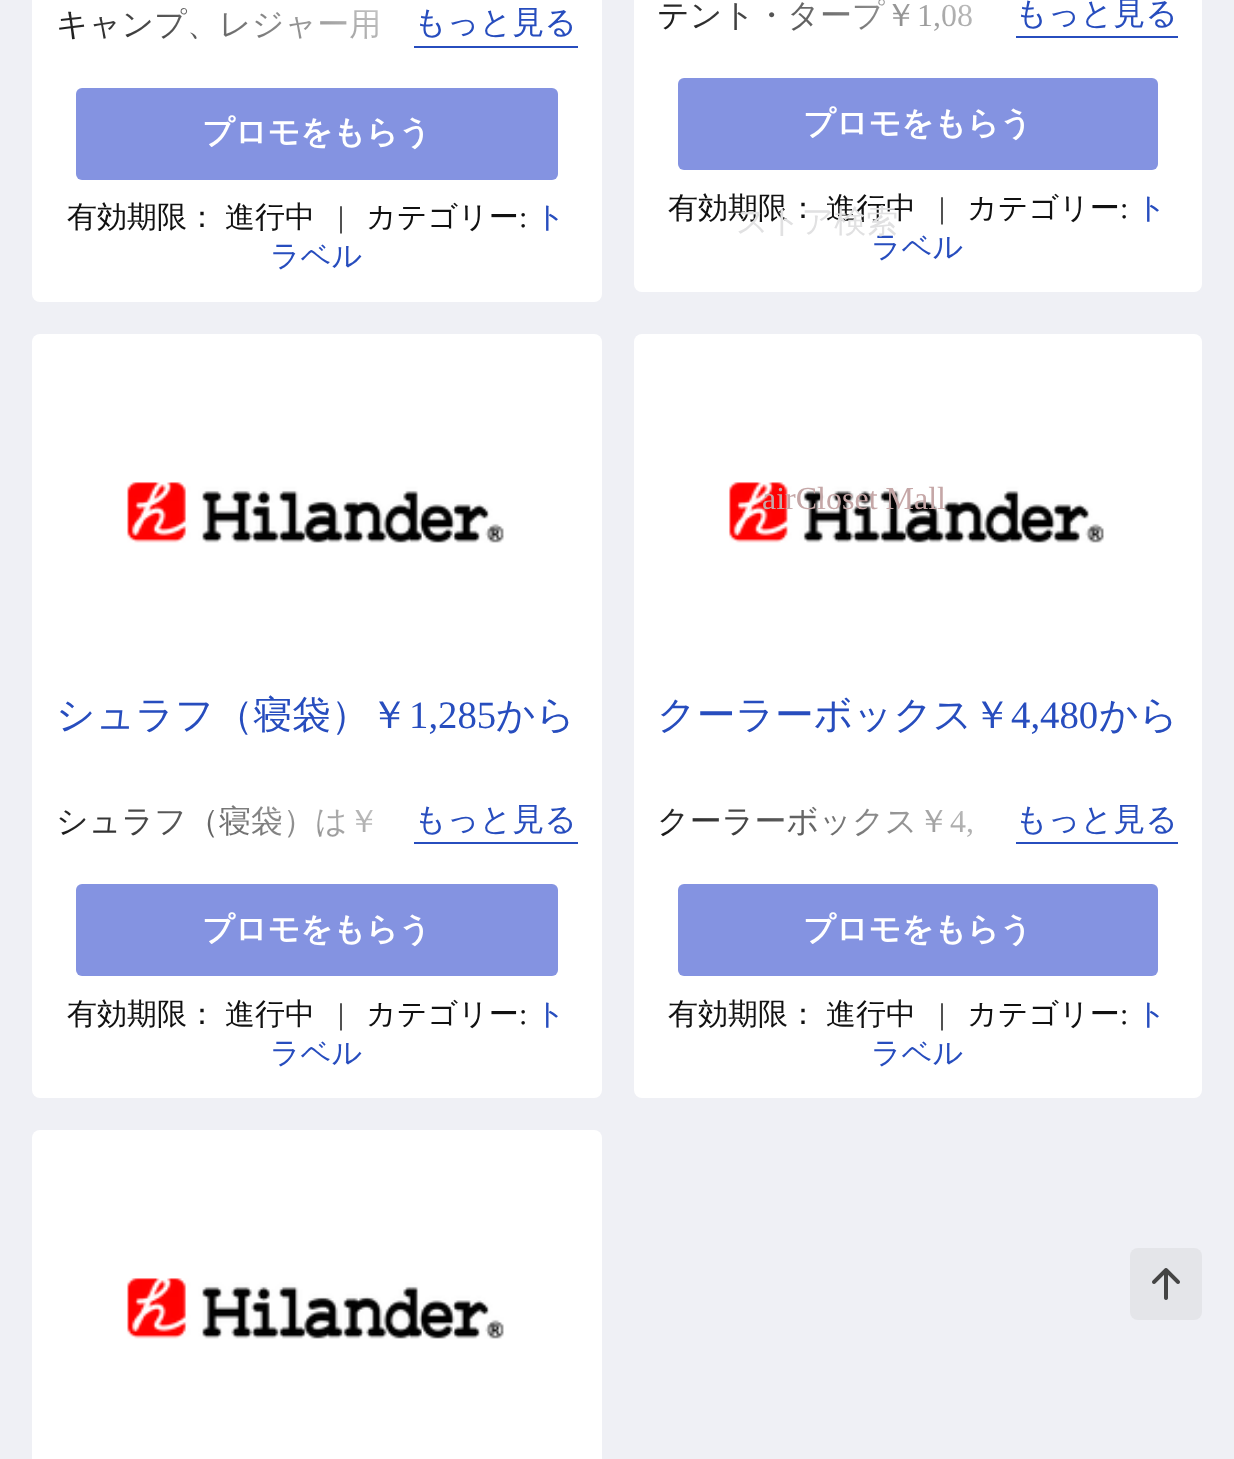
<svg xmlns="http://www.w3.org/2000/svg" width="1234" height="1459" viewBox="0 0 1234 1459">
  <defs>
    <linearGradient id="g1" gradientUnits="userSpaceOnUse" x1="177" y1="169" x2="458" y2="-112"><stop offset="0" stop-color="rgb(255,255,255)" stop-opacity="0"/><stop offset="0.86" stop-color="rgb(255,255,255)"/></linearGradient>
    <linearGradient id="g2" gradientUnits="userSpaceOnUse" x1="778" y1="158" x2="1058" y2="-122"><stop offset="0" stop-color="rgb(255,255,255)" stop-opacity="0"/><stop offset="0.86" stop-color="rgb(255,255,255)"/></linearGradient>
    <linearGradient id="g3" gradientUnits="userSpaceOnUse" x1="177" y1="965" x2="458" y2="684"><stop offset="0" stop-color="rgb(255,255,255)" stop-opacity="0"/><stop offset="0.86" stop-color="rgb(255,255,255)"/></linearGradient>
    <linearGradient id="g4" gradientUnits="userSpaceOnUse" x1="778" y1="964" x2="1058" y2="684"><stop offset="0" stop-color="rgb(255,255,255)" stop-opacity="0"/><stop offset="0.86" stop-color="rgb(255,255,255)"/></linearGradient>
  </defs>
  <rect width="100%" height="100%" fill="rgb(239,240,245)"/>
  <rect x="32" y="-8" width="570" height="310" rx="8" fill="rgb(255,255,255)"/>
  <text x="56" y="35" font-family="WenQuanYi Zen Hei" font-size="32" font-weight="500" fill="rgb(17,17,17)">キャンプ、レジャー用</text>
  <rect x="59" y="8" width="319" height="31" fill="url(#g1)"/>
  <rect x="414" y="46" width="164" height="2" fill="rgb(39,77,190)"/>
  <text x="414" y="33" font-family="WenQuanYi Zen Hei" font-size="32" font-weight="500" fill="rgb(39,77,190)">もっと見る</text>
  <rect x="76" y="88" width="482" height="92" rx="6" fill="rgb(132,147,225)"/>
  <text x="202" y="143" font-family="WenQuanYi Zen Hei" font-size="32" font-weight="bold" fill="rgb(255,255,255)">プロモをもらう</text>
  <g font-family="WenQuanYi Zen Hei" font-size="30" font-weight="500" fill="rgb(17,17,17)">
    <text x="67" y="227">有効期限：</text>
    <text x="225" y="227">進行中</text>
  </g>
  <text x="338" y="227" font-family="Liberation Serif" font-size="30" fill="rgb(17,17,17)">|</text>
  <text x="366" y="227" font-family="WenQuanYi Zen Hei" font-size="30" font-weight="500" fill="rgb(17,17,17)">カテゴリー</text>
  <text x="519" y="227" font-family="Liberation Serif" font-size="30" fill="rgb(17,17,17)">:</text>
  <g font-family="WenQuanYi Zen Hei" font-size="30" font-weight="500" fill="rgb(39,77,190)">
    <text x="535" y="227">ト</text>
    <text x="270" y="266">ラベル</text>
  </g>
  <rect x="634" y="-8" width="568" height="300" rx="8" fill="rgb(255,255,255)"/>
  <text x="657" y="26" font-family="WenQuanYi Zen Hei" font-size="32" font-weight="500" fill="rgb(17,17,17)">テント・タープ￥</text>
  <text x="917" y="26" font-family="Liberation Serif" font-size="32" fill="rgb(17,17,17)">1,08</text>
  <rect x="659" y="0" width="313" height="31" fill="url(#g2)"/>
  <rect x="1016" y="36" width="162" height="2" fill="rgb(39,77,190)"/>
  <text x="1015" y="24" font-family="WenQuanYi Zen Hei" font-size="32" font-weight="500" fill="rgb(39,77,190)">もっと見る</text>
  <rect x="678" y="78" width="480" height="92" rx="6" fill="rgb(132,147,225)"/>
  <text x="803" y="134" font-family="WenQuanYi Zen Hei" font-size="32" font-weight="bold" fill="rgb(255,255,255)">プロモをもらう</text>
  <g font-family="WenQuanYi Zen Hei" font-size="30" font-weight="500" fill="rgb(17,17,17)">
    <text x="668" y="218">有効期限：</text>
    <text x="826" y="218">進行中</text>
  </g>
  <text x="939" y="218" font-family="Liberation Serif" font-size="30" fill="rgb(17,17,17)">|</text>
  <text x="967" y="218" font-family="WenQuanYi Zen Hei" font-size="30" font-weight="500" fill="rgb(17,17,17)">カテゴリー</text>
  <text x="1120" y="218" font-family="Liberation Serif" font-size="30" fill="rgb(17,17,17)">:</text>
  <g font-family="WenQuanYi Zen Hei" font-size="30" font-weight="500" fill="rgb(39,77,190)">
    <text x="1136" y="218">ト</text>
    <text x="871" y="257">ラベル</text>
  </g>
  <rect x="32" y="334" width="570" height="764" rx="8" fill="rgb(255,255,255)"/>
  <image x="127" y="482" width="377" height="61" href="pic1.png"/>
  <text x="56" y="728" font-family="WenQuanYi Zen Hei" font-size="38.75" font-weight="500" fill="rgb(39,77,190)">シュラフ（寝袋）￥</text>
  <text x="409" y="728" font-family="Liberation Serif" font-size="38.75" fill="rgb(39,77,190)">1,285</text>
  <text x="496" y="728" font-family="WenQuanYi Zen Hei" font-size="38.75" font-weight="500" fill="rgb(39,77,190)">から</text>
  <text x="56" y="832" font-family="WenQuanYi Zen Hei" font-size="32" font-weight="500" fill="rgb(17,17,17)">シュラフ（寝袋）は￥</text>
  <rect x="59" y="805" width="314" height="33" fill="url(#g3)"/>
  <rect x="414" y="842" width="164" height="2" fill="rgb(39,77,190)"/>
  <text x="414" y="830" font-family="WenQuanYi Zen Hei" font-size="32" font-weight="500" fill="rgb(39,77,190)">もっと見る</text>
  <rect x="76" y="884" width="482" height="92" rx="6" fill="rgb(132,147,225)"/>
  <text x="202" y="940" font-family="WenQuanYi Zen Hei" font-size="32" font-weight="bold" fill="rgb(255,255,255)">プロモをもらう</text>
  <g font-family="WenQuanYi Zen Hei" font-size="30" font-weight="500" fill="rgb(17,17,17)">
    <text x="67" y="1024">有効期限：</text>
    <text x="225" y="1024">進行中</text>
  </g>
  <text x="338" y="1024" font-family="Liberation Serif" font-size="30" fill="rgb(17,17,17)">|</text>
  <text x="366" y="1024" font-family="WenQuanYi Zen Hei" font-size="30" font-weight="500" fill="rgb(17,17,17)">カテゴリー</text>
  <text x="519" y="1024" font-family="Liberation Serif" font-size="30" fill="rgb(17,17,17)">:</text>
  <g font-family="WenQuanYi Zen Hei" font-size="30" font-weight="500" fill="rgb(39,77,190)">
    <text x="535" y="1024">ト</text>
    <text x="270" y="1063">ラベル</text>
  </g>
  <rect x="634" y="334" width="568" height="764" rx="8" fill="rgb(255,255,255)"/>
  <image x="729" y="482" width="375" height="61" href="pic2.png"/>
  <text x="657" y="728" font-family="WenQuanYi Zen Hei" font-size="38.75" font-weight="500" fill="rgb(39,77,190)">クーラーボックス￥</text>
  <text x="1011" y="728" font-family="Liberation Serif" font-size="38.75" fill="rgb(39,77,190)">4,480</text>
  <text x="1099" y="728" font-family="WenQuanYi Zen Hei" font-size="38.75" font-weight="500" fill="rgb(39,77,190)">から</text>
  <text x="657" y="832" font-family="WenQuanYi Zen Hei" font-size="32" font-weight="500" fill="rgb(17,17,17)">クーラーボックス￥</text>
  <text x="950" y="832" font-family="Liberation Serif" font-size="32" fill="rgb(17,17,17)">4,</text>
  <rect x="660" y="806" width="312" height="31" fill="url(#g4)"/>
  <rect x="1016" y="842" width="162" height="2" fill="rgb(39,77,190)"/>
  <text x="1015" y="830" font-family="WenQuanYi Zen Hei" font-size="32" font-weight="500" fill="rgb(39,77,190)">もっと見る</text>
  <rect x="678" y="884" width="480" height="92" rx="6" fill="rgb(132,147,225)"/>
  <text x="803" y="940" font-family="WenQuanYi Zen Hei" font-size="32" font-weight="bold" fill="rgb(255,255,255)">プロモをもらう</text>
  <g font-family="WenQuanYi Zen Hei" font-size="30" font-weight="500" fill="rgb(17,17,17)">
    <text x="668" y="1024">有効期限：</text>
    <text x="826" y="1024">進行中</text>
  </g>
  <text x="939" y="1024" font-family="Liberation Serif" font-size="30" fill="rgb(17,17,17)">|</text>
  <text x="967" y="1024" font-family="WenQuanYi Zen Hei" font-size="30" font-weight="500" fill="rgb(17,17,17)">カテゴリー</text>
  <text x="1120" y="1024" font-family="Liberation Serif" font-size="30" fill="rgb(17,17,17)">:</text>
  <g font-family="WenQuanYi Zen Hei" font-size="30" font-weight="500" fill="rgb(39,77,190)">
    <text x="1136" y="1024">ト</text>
    <text x="871" y="1063">ラベル</text>
  </g>
  <rect x="32" y="1130" width="570" height="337" rx="8" fill="rgb(255,255,255)"/>
  <image x="127" y="1278" width="377" height="61" href="pic1.png"/>
  <text x="736" y="232" font-family="WenQuanYi Zen Hei" font-size="32" font-weight="500" fill="rgb(225,225,226)">ストア検索</text>
  <text x="762" y="509" font-family="Liberation Serif" font-size="32" fill="rgb(197,167,167)">airCloset Mall</text>
  <rect x="1130" y="1248" width="72" height="72" rx="8" fill="rgb(228,229,233)"/>
  <image x="1152" y="1268" width="28" height="32" href="pic3.png"/>
</svg>
